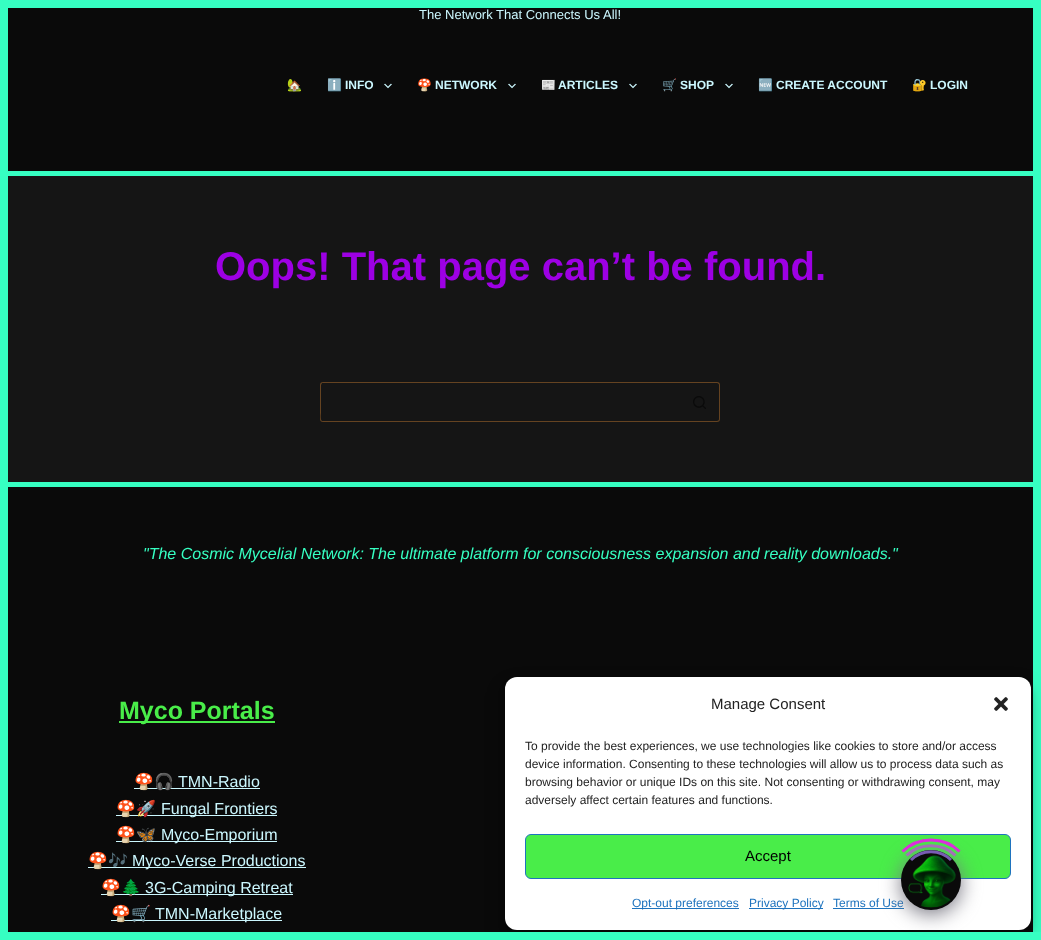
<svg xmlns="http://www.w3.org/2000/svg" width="1041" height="940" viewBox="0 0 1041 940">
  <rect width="100%" height="100%" fill="rgb(21,21,21)"/>
  <rect x="4" y="-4" width="1033" height="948" fill="none" stroke="rgb(54,255,194)" stroke-width="8"/>
  <rect x="0" y="0" width="1041" height="8" fill="rgb(54,255,194)"/>
  <rect x="8" y="8" width="1025" height="163" fill="rgb(10,10,10)"/>
  <rect x="8" y="171" width="1025" height="5" fill="rgb(54,255,194)"/>
  <text x="419" y="19" font-family="Liberation Sans" font-size="13" fill="rgb(204,248,255)">The Network That Connects Us All!</text>
  <g font-family="Noto Color Emoji" font-size="12" font-weight="bold" fill="rgb(204,248,255)">
    <text x="287" y="89">🏡</text>
    <text x="327" y="89">ℹ️</text>
  </g>
  <text x="345" y="89" font-family="Liberation Sans" font-size="12" font-weight="bold" fill="rgb(204,248,255)">INFO</text>
  <image x="384" y="83" width="8" height="6" href="pic1.png"/>
  <text x="417" y="89" font-family="Noto Color Emoji" font-size="12" font-weight="bold" fill="rgb(204,248,255)">🍄</text>
  <text x="435" y="89" font-family="Liberation Sans" font-size="12" font-weight="bold" fill="rgb(204,248,255)">NETWORK</text>
  <image x="508" y="83" width="8" height="6" href="pic1.png"/>
  <text x="541" y="89" font-family="Noto Color Emoji" font-size="12" font-weight="bold" fill="rgb(204,248,255)">📰</text>
  <text x="558" y="89" font-family="Liberation Sans" font-size="12" font-weight="bold" fill="rgb(204,248,255)">ARTICLES</text>
  <image x="629" y="83" width="8" height="6" href="pic1.png"/>
  <text x="662" y="89" font-family="Noto Color Emoji" font-size="12" font-weight="bold" fill="rgb(204,248,255)">🛒</text>
  <text x="680" y="89" font-family="Liberation Sans" font-size="12" font-weight="bold" fill="rgb(204,248,255)">SHOP</text>
  <image x="725" y="83" width="8" height="6" href="pic1.png"/>
  <text x="758" y="89" font-family="Noto Color Emoji" font-size="12" font-weight="bold" fill="rgb(204,248,255)">🆕</text>
  <text x="776" y="89" font-family="Liberation Sans" font-size="12" font-weight="bold" fill="rgb(204,248,255)">CREATE ACCOUNT</text>
  <text x="912" y="89" font-family="Noto Color Emoji" font-size="12" font-weight="bold" fill="rgb(204,248,255)">🔐</text>
  <text x="930" y="89" font-family="Liberation Sans" font-size="12" font-weight="bold" fill="rgb(204,248,255)">LOGIN</text>
  <text x="215" y="280" font-family="Liberation Sans" font-size="40" font-weight="bold" fill="rgb(157,0,228)">Oops! That page can’t be found.</text>
  <path d="M323 382H680V422H323C321 422 320 421 320 419V385C320 383 321 382 323 382ZM323 383H680V421H322C320 419 321 414 321 413V385L322 383Z" fill="rgb(101,67,33)" fill-rule="evenodd"/>
  <path d="M680 382H717C719 382 720 383 720 385V419C720 421 719 422 717 422H680ZM680 383H717C718 383 719 384 719 385V419C719 420 718 421 717 421H680Z" fill="rgb(101,67,33)" fill-rule="evenodd"/>
  <image x="693" y="396" width="13" height="13" href="pic2.png"/>
  <rect x="8" y="487" width="1025" height="445" fill="rgb(10,10,10)"/>
  <rect x="8" y="482" width="1025" height="5" fill="rgb(54,255,194)"/>
  <text x="143" y="559" font-family="Liberation Sans" font-size="16" font-style="italic" fill="rgb(54,255,194)">"The Cosmic Mycelial Network: The ultimate platform for consciousness expansion and reality downloads."</text>
  <rect x="119" y="721" width="156" height="2" fill="rgb(73,237,73)"/>
  <text x="119" y="719" font-family="Liberation Sans" font-size="25" font-weight="bold" fill="rgb(73,237,73)">Myco Portals</text>
  <rect x="134" y="788" width="126" height="1" fill="rgb(204,248,255)"/>
  <text x="134" y="787" font-family="Noto Color Emoji" font-size="16" fill="rgb(204,248,255)">🍄🎧</text>
  <text x="178" y="787" font-family="Liberation Sans" font-size="16" fill="rgb(204,248,255)">TMN-Radio</text>
  <rect x="116" y="815" width="161" height="1" fill="rgb(204,248,255)"/>
  <text x="116" y="814" font-family="Noto Color Emoji" font-size="16" fill="rgb(204,248,255)">🍄🚀</text>
  <text x="161" y="814" font-family="Liberation Sans" font-size="16" fill="rgb(204,248,255)">Fungal Frontiers</text>
  <rect x="116" y="841" width="161" height="1" fill="rgb(204,248,255)"/>
  <text x="116" y="840" font-family="Noto Color Emoji" font-size="16" fill="rgb(204,248,255)">🍄🦋</text>
  <text x="161" y="840" font-family="Liberation Sans" font-size="16" fill="rgb(204,248,255)">Myco-Emporium</text>
  <rect x="88" y="867" width="218" height="1" fill="rgb(204,248,255)"/>
  <text x="88" y="866" font-family="Noto Color Emoji" font-size="16" fill="rgb(204,248,255)">🍄🎶</text>
  <text x="132" y="866" font-family="Liberation Sans" font-size="16" fill="rgb(204,248,255)">Myco-Verse Productions</text>
  <rect x="101" y="894" width="192" height="1" fill="rgb(204,248,255)"/>
  <text x="101" y="893" font-family="Noto Color Emoji" font-size="16" fill="rgb(204,248,255)">🍄🌲</text>
  <text x="145" y="893" font-family="Liberation Sans" font-size="16" fill="rgb(204,248,255)">3G-Camping Retreat</text>
  <rect x="111" y="920" width="171" height="1" fill="rgb(204,248,255)"/>
  <text x="111" y="919" font-family="Noto Color Emoji" font-size="16" fill="rgb(204,248,255)">🍄🛒</text>
  <text x="155" y="919" font-family="Liberation Sans" font-size="16" fill="rgb(204,248,255)">TMN-Marketplace</text>
  <rect x="505" y="683" width="526" height="253" rx="12" fill="rgba(0,0,0,0.23)" filter="blur(3px)"/>
  <rect x="505" y="687" width="526" height="253" rx="12" fill="rgba(0,0,0,0.19)" filter="blur(10px)"/>
  <rect x="505" y="677" width="526" height="253" rx="12" fill="rgb(255,255,255)"/>
  <text x="711" y="709" font-family="Liberation Sans" font-size="15" fill="rgb(34,34,34)">Manage Consent</text>
  <image x="994" y="697" width="14" height="14" href="pic3.png"/>
  <g font-family="Liberation Sans" font-size="12" fill="rgb(34,34,34)">
    <text>
      <tspan x="525" y="750">To provide the best experiences, we use technologies like cookies to store and/or access</tspan>
      <tspan x="525" y="768">device information. Consenting to these technologies will allow us to process data such as</tspan>
      <tspan x="525" y="786">browsing behavior or unique IDs on this site. Not consenting or withdrawing consent, may</tspan>
      <tspan x="525" y="804">adversely affect certain features and functions.</tspan>
    </text>
  </g>
  <rect x="525.5" y="834.5" width="485" height="44" rx="5.5" fill="rgb(73,237,73)" stroke="rgb(30,115,190)"/>
  <text x="745" y="861" font-family="Liberation Sans" font-size="15" fill="rgb(0,0,0)">Accept</text>
  <rect x="632" y="908" width="107" height="1" fill="rgb(30,115,190)"/>
  <text x="632" y="907" font-family="Liberation Sans" font-size="12" fill="rgb(30,115,190)">Opt-out preferences</text>
  <rect x="749" y="908" width="74" height="1" fill="rgb(30,115,190)"/>
  <g font-family="Liberation Sans" font-size="12" fill="rgb(30,115,190)">
    <text x="749" y="907">Privacy Policy</text>
    <text x="833" y="907">Terms of Use</text>
  </g>
  <rect x="833" y="908" width="71" height="1" fill="rgb(30,115,190)"/>
  <rect x="0" y="932" width="1041" height="8" fill="rgb(54,255,194)"/>
  <rect x="901" y="854" width="60" height="60" rx="30" fill="rgb(118,117,128)" filter="blur(10px)"/>
  <circle cx="931" cy="880" r="30" fill="rgb(10,10,10)"/>
  <image x="908" y="855" width="48" height="53" href="pic4.png"/>
  <path d="M911 860C922 849 940 849 951 860" fill="none" stroke="rgba(147,112,219,0.81)" stroke-width="3"/>
  <path d="M906.5 855.5C920 842.5 942 842.5 955.5 855.5" fill="none" stroke="rgba(186,85,211,0.81)" stroke-width="3"/>
  <path d="M902.5 851.5C918 836 944 836 959.5 851.5" fill="none" stroke="rgba(255,0,255,0.81)" stroke-width="3"/>
</svg>
